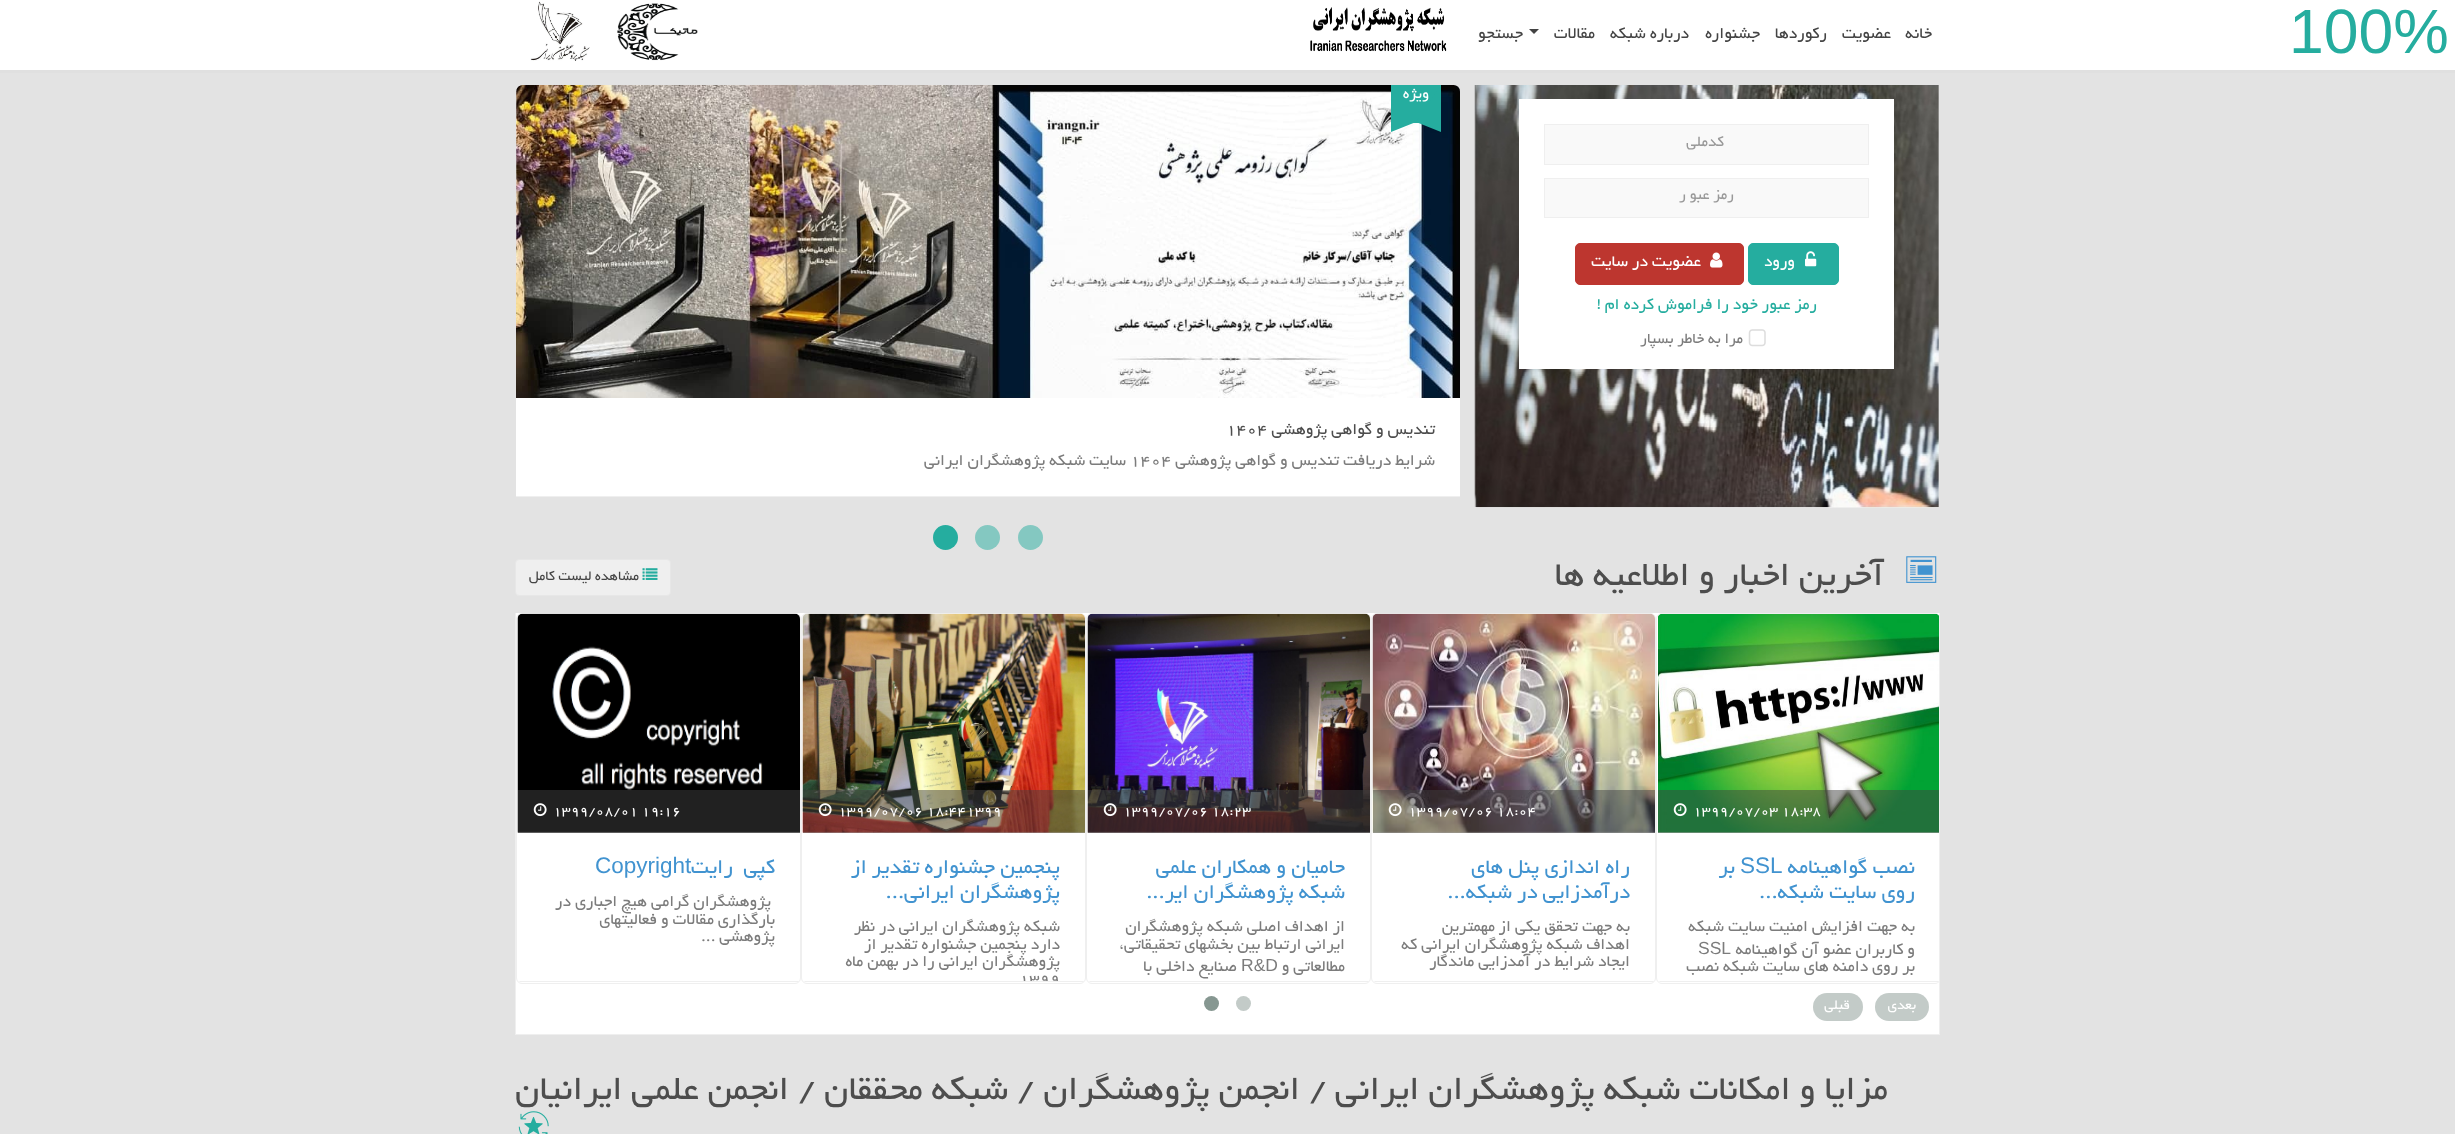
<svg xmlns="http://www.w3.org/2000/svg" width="2455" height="1134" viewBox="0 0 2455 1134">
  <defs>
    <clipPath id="clip1"><rect x="516" y="613" width="1423" height="371"/></clipPath>
    <clipPath id="clip2"><rect x="1658" y="614" width="282" height="369" rx="5"/></clipPath>
    <clipPath id="clip3"><rect x="1373" y="614" width="282" height="369" rx="5"/></clipPath>
    <clipPath id="clip4"><rect x="1088" y="614" width="282" height="369" rx="5"/></clipPath>
    <clipPath id="clip5"><rect x="803" y="614" width="282" height="369" rx="5"/></clipPath>
    <clipPath id="clip6"><rect x="803" y="833" width="282" height="148"/></clipPath>
    <clipPath id="clip7"><rect x="518" y="614" width="282" height="369" rx="5"/></clipPath>
  </defs>
  <rect width="100%" height="100%" fill="rgb(227,227,227)"/>
  <rect x="0" y="0" width="2455" height="70" fill="rgb(255,255,255)"/>
  <text x="2289" y="53" font-family="Liberation Sans" font-size="62.5" fill="rgb(37,173,159)">100%</text>
  <rect x="0" y="70" width="2455" height="3" fill="rgb(224,224,224)"/>
  <g font-family="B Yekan" font-size="17.5" direction="rtl" fill="rgb(68,68,68)">
    <text x="1932" y="38">خانه</text>
    <text x="1891" y="38">عضویت</text>
    <text x="1827" y="38">رکوردها</text>
    <text x="1760" y="38">جشنواره</text>
    <text x="1689" y="38">درباره شبکه</text>
    <text x="1595" y="38">مقالات</text>
  </g>
  <path d="M1529 29H1539L1534 34Z" fill="rgb(66,66,66)"/>
  <text x="1523" y="38" font-family="B Yekan" font-size="17.5" direction="rtl" fill="rgb(68,68,68)">جستجو</text>
  <image x="1310" y="7" width="137" height="45" href="pic1.png"/>
  <image x="617" y="3" width="81" height="58" href="pic2.png"/>
  <image x="530" y="1" width="60" height="60" href="pic3.png"/>
  <image x="1474" y="85" width="465" height="423" href="pic4.png"/>
  <rect x="1519" y="99" width="375" height="270" fill="rgb(255,255,255)"/>
  <rect x="1544.5" y="124.5" width="324" height="40" fill="rgb(249,249,249)" stroke="rgb(239,239,239)"/>
  <text x="1724" y="146" font-family="B Yekan" font-size="16.25" direction="rtl" fill="rgb(153,153,153)">کدملی</text>
  <rect x="1544.5" y="178.5" width="324" height="39" fill="rgb(249,249,249)" stroke="rgb(239,239,239)"/>
  <text x="1734" y="199" font-family="B Yekan" font-size="16.25" direction="rtl" fill="rgb(153,153,153)">رمز عبو ر</text>
  <rect x="1748.5" y="243.5" width="90" height="41" rx="4.5" fill="rgb(37,173,159)" stroke="rgb(37,173,159)"/>
  <image x="1805" y="251" width="12" height="16" href="pic5.png"/>
  <text x="1795" y="266" font-family="B Yekan" font-size="17.5" direction="rtl" fill="rgb(255,255,255)">ورود</text>
  <rect x="1575.5" y="243.5" width="168" height="41" rx="4.5" fill="rgb(189,54,47)" stroke="rgb(189,54,47)"/>
  <image x="1710" y="252" width="13" height="16" href="pic6.png"/>
  <text x="1701" y="266" font-family="B Yekan" font-size="17.5" direction="rtl" fill="rgb(255,255,255)">عضویت در سایت</text>
  <text x="1817" y="309" font-family="B Yekan" font-size="17.5" direction="rtl" fill="rgb(37,173,159)">رمز عبور خود را فراموش کرده ام !</text>
  <image x="1748" y="329" width="18" height="18" href="pic7.png"/>
  <text x="1743" y="343" font-family="B Yekan" font-size="16.25" direction="rtl" fill="rgb(124,124,124)">مرا به خاطر بسپار</text>
  <rect x="516" y="496" width="944" height="1" fill="rgb(239,239,239)"/>
  <path d="M522 85H1454C1457.5 85 1460 87.5 1460 91V496H516V91C516 87.5 518.5 85 522 85Z" fill="rgb(255,255,255)"/>
  <path d="M522 85H1454C1457.5 85 1460 87.5 1460 91V398H516V91C516 87.5 518.5 85 522 85Z" fill="rgb(255,255,255)"/>
  <image x="516" y="85" width="944" height="313" href="pic8.png"/>
  <path d="M1391 132V85L1416 122Z" fill="rgb(37,173,159)"/>
  <rect x="1391" y="85" width="50" height="38" fill="rgb(37,173,159)"/>
  <path d="M1441 85V132L1416 122Z" fill="rgb(37,173,159)"/>
  <text x="1429" y="98" font-family="B Yekan" font-size="16.25" direction="rtl" fill="rgb(255,255,255)">ویژه</text>
  <text x="1435" y="434" font-family="B Yekan" font-size="17.5" direction="rtl" fill="rgb(77,77,77)">تندیس و گواهی پژوهشی</text>
  <text x="1226" y="434" font-family="B Yekan" font-size="17.5" fill="rgb(77,77,77)">1404</text>
  <text x="1435" y="465" font-family="B Yekan" font-size="17.5" direction="rtl" fill="rgb(124,124,124)">شرایط دریافت تندیس و گواهی پژوهشی</text>
  <text x="1130" y="465" font-family="B Yekan" font-size="17.5" fill="rgb(124,124,124)">1404</text>
  <text x="1126" y="465" font-family="B Yekan" font-size="17.5" direction="rtl" fill="rgb(124,124,124)">سایت شبکه پژوهشگران ایرانی</text>
  <circle cx="1030.5" cy="537.5" r="12.5" fill="rgb(132,200,193)"/>
  <circle cx="987.5" cy="537.5" r="12.5" fill="rgb(132,200,193)"/>
  <circle cx="945.5" cy="537.5" r="12.5" fill="rgb(37,173,159)"/>
  <image x="1906" y="556" width="31" height="27" href="pic9.png"/>
  <text x="1884" y="585" font-family="B Yekan" font-size="37.5" direction="rtl" fill="rgb(77,77,77)">آخرین اخبار و اطلاعیه ها</text>
  <rect x="515.5" y="559.5" width="155" height="36" rx="3.5" fill="rgb(239,239,239)" stroke="rgb(231,231,231)"/>
  <image x="642" y="568" width="16" height="12" href="pic10.png"/>
  <text x="639" y="580" font-family="B Yekan" font-size="15" direction="rtl" fill="rgb(68,68,68)">مشاهده لیست کامل</text>
  <rect x="516" y="613" width="1423" height="421" fill="rgb(255,255,255)"/>
  <rect x="1939" y="613" width="1" height="422" fill="rgb(239,239,239)"/>
  <rect x="515" y="1034" width="1425" height="1" fill="rgb(239,239,239)"/>
  <rect x="515" y="613" width="1" height="422" fill="rgb(239,239,239)"/>
  <g clip-path="url(#clip1)">
    <rect x="1656.5" y="613.5" width="284" height="370" rx="5.5" fill="none" stroke="rgb(239,239,239)"/>
  </g>
  <image x="1658" y="614" width="281" height="219" href="pic11.png"/>
  <rect x="1658" y="790" width="281" height="43" fill="rgba(66,66,66,0.5)"/>
  <text x="1693" y="815" font-family="B Yekan" font-size="15" fill="rgb(255,255,255)">1399/07/03 18:38</text>
  <image x="1673" y="803" width="14" height="14" href="pic12.png"/>
  <g clip-path="url(#clip2)">
    <rect x="1658" y="981" width="281" height="1" fill="rgb(239,239,239)"/>
  </g>
  <text x="1915" y="873" font-family="B Yekan" font-size="22.5" direction="rtl" fill="rgb(65,147,208)">نصب گواهینامه</text>
  <text x="1740" y="873" font-family="Liberation Sans" font-size="22.5" fill="rgb(65,147,208)">SSL</text>
  <g font-family="B Yekan" font-size="22.5" direction="rtl" fill="rgb(65,147,208)">
    <text x="1735" y="873">بر</text>
    <text x="1915" y="898">روی سایت شبکه...</text>
  </g>
  <g font-family="B Yekan" font-size="17.5" direction="rtl" fill="rgb(124,124,124)">
    <text>
      <tspan x="1915" y="931">به جهت افزایش امنیت سایت شبکه</tspan>
      <tspan x="1915" y="954">و کاربران عضو آن گواهینامه</tspan>
    </text>
  </g>
  <text x="1698" y="954" font-family="Liberation Sans" font-size="17.5" fill="rgb(124,124,124)">SSL</text>
  <text x="1915" y="971" font-family="B Yekan" font-size="17.5" direction="rtl" fill="rgb(124,124,124)">بر روی دامنه های سایت شبکه نصب</text>
  <rect x="1371.5" y="613.5" width="284" height="370" rx="5.5" fill="none" stroke="rgb(239,239,239)"/>
  <image x="1372" y="613" width="283" height="220" href="pic13.png"/>
  <rect x="1373" y="790" width="282" height="43" fill="rgba(66,66,66,0.5)"/>
  <text x="1408" y="815" font-family="B Yekan" font-size="15" fill="rgb(255,255,255)">1399/07/06 18:04</text>
  <image x="1388" y="803" width="14" height="14" href="pic14.png"/>
  <g clip-path="url(#clip3)">
    <rect x="1373" y="981" width="282" height="1" fill="rgb(239,239,239)"/>
  </g>
  <g font-family="B Yekan" font-size="22.5" direction="rtl" fill="rgb(65,147,208)">
    <text>
      <tspan x="1630" y="873">راه اندازی پنل های</tspan>
      <tspan x="1630" y="898">درآمدزایی در شبکه...</tspan>
    </text>
  </g>
  <g font-family="B Yekan" font-size="17.5" direction="rtl" fill="rgb(124,124,124)">
    <text x="1630" y="931">به جهت تحقق یکی از</text>
    <text x="1495" y="931">مهمترین</text>
    <text>
      <tspan x="1630" y="949">اهداف شبکه پژوهشگران ایرانی که</tspan>
      <tspan x="1630" y="966">ایجاد شرایط در آمدزایی ماندگار</tspan>
    </text>
  </g>
  <rect x="1086.5" y="613.5" width="284" height="370" rx="5.5" fill="none" stroke="rgb(239,239,239)"/>
  <image x="1087" y="613" width="283" height="220" href="pic15.png"/>
  <rect x="1088" y="790" width="282" height="43" fill="rgba(66,66,66,0.5)"/>
  <text x="1123" y="815" font-family="B Yekan" font-size="15" fill="rgb(255,255,255)">1399/07/06 18:23</text>
  <image x="1103" y="803" width="14" height="14" href="pic16.png"/>
  <g clip-path="url(#clip4)">
    <rect x="1088" y="981" width="282" height="1" fill="rgb(239,239,239)"/>
  </g>
  <g font-family="B Yekan" font-size="22.5" direction="rtl" fill="rgb(65,147,208)">
    <text>
      <tspan x="1345" y="873">حامیان و همکاران علمی</tspan>
      <tspan x="1345" y="898">شبکه پژوهشگران ایر...</tspan>
    </text>
  </g>
  <g font-family="B Yekan" font-size="17.5" direction="rtl" fill="rgb(124,124,124)">
    <text>
      <tspan x="1345" y="931">از اهداف اصلی شبکه پژوهشگران</tspan>
      <tspan x="1345" y="949">ایرانی ارتباط بین بخشهای تحقیقاتی،</tspan>
      <tspan x="1345" y="971">مطالعاتی و</tspan>
    </text>
  </g>
  <text x="1241" y="971" font-family="Liberation Sans" font-size="17.5" fill="rgb(124,124,124)">R&amp;D</text>
  <text x="1237" y="971" font-family="B Yekan" font-size="17.5" direction="rtl" fill="rgb(124,124,124)">صنایع داخلی با</text>
  <rect x="801.5" y="613.5" width="284" height="370" rx="5.5" fill="none" stroke="rgb(239,239,239)"/>
  <image x="802" y="613" width="283" height="220" href="pic17.png"/>
  <rect x="803" y="790" width="282" height="43" fill="rgba(66,66,66,0.5)"/>
  <text x="838" y="815" font-family="B Yekan" font-size="15" fill="rgb(255,255,255)">1399/07/06 18:441399</text>
  <image x="818" y="803" width="14" height="14" href="pic18.png"/>
  <g clip-path="url(#clip5)">
    <rect x="803" y="981" width="282" height="1" fill="rgb(239,239,239)"/>
  </g>
  <g font-family="B Yekan" font-size="22.5" direction="rtl" fill="rgb(65,147,208)">
    <text>
      <tspan x="1060" y="873">پنجمین جشنواره تقدیر از</tspan>
      <tspan x="1060" y="898">پژوهشگران ایرانی...</tspan>
    </text>
  </g>
  <g font-family="B Yekan" font-size="17.5" direction="rtl" fill="rgb(124,124,124)">
    <text>
      <tspan x="1060" y="931">شبکه پژوهشگران ایرانی در نظر</tspan>
      <tspan x="1060" y="949">دارد پنجمین جشنواره تقدیر از</tspan>
      <tspan x="1060" y="966">پژوهشگران ایرانی را در بهمن ماه</tspan>
    </text>
  </g>
  <g clip-path="url(#clip6)">
    <text x="1019" y="984" font-family="B Yekan" font-size="17.5" fill="rgb(124,124,124)">۱۳۹۹</text>
  </g>
  <rect x="516.5" y="613.5" width="284" height="370" rx="5.5" fill="none" stroke="rgb(239,239,239)"/>
  <image x="517" y="613" width="283" height="220" href="pic19.png"/>
  <rect x="518" y="790" width="282" height="43" fill="rgba(66,66,66,0.5)"/>
  <text x="553" y="815" font-family="B Yekan" font-size="15" fill="rgb(255,255,255)">1399/08/01 19:16</text>
  <image x="533" y="803" width="14" height="14" href="pic20.png"/>
  <g clip-path="url(#clip7)">
    <rect x="518" y="981" width="282" height="1" fill="rgb(239,239,239)"/>
  </g>
  <g font-family="B Yekan" font-size="22.5" direction="rtl" fill="rgb(65,147,208)">
    <text x="775" y="873">کپی</text>
    <text x="733" y="873">رایت</text>
  </g>
  <text x="595" y="873" font-family="Liberation Sans" font-size="22.5" fill="rgb(65,147,208)">Copyright</text>
  <g font-family="B Yekan" font-size="17.5" direction="rtl" fill="rgb(124,124,124)">
    <text x="771" y="906">پژوهشگران گرامی هیچ اجباری در</text>
    <text>
      <tspan x="775" y="924">بارگذاری مقالات و فعالیتهای</tspan>
      <tspan x="775" y="941">پژوهشی</tspan>
    </text>
  </g>
  <text x="701" y="941" font-family="B Yekan" font-size="17.5" fill="rgb(124,124,124)">...</text>
  <rect x="1875" y="993" width="54" height="28" rx="14" fill="rgb(195,203,200)"/>
  <text x="1916" y="1009" font-family="B Yekan" font-size="15" direction="rtl" fill="rgb(255,255,255)">بعدی</text>
  <rect x="1813" y="993" width="50" height="28" rx="14" fill="rgb(195,203,200)"/>
  <text x="1850" y="1009" font-family="B Yekan" font-size="15" direction="rtl" fill="rgb(255,255,255)">قبلی</text>
  <circle cx="1243.5" cy="1003.5" r="7.5" fill="rgb(195,203,200)"/>
  <circle cx="1211.5" cy="1003.5" r="7.5" fill="rgb(134,151,145)"/>
  <text x="1888" y="1099" font-family="B Yekan" font-size="37.5" direction="rtl" fill="rgb(77,77,77)">مزایا و امکانات شبکه پژوهشگران ایرانی / انجمن پژوهشگران / شبکه محققان / انجمن علمی ایرانیان</text>
  <image x="518" y="1111" width="31" height="23" href="pic21.png"/>
</svg>
